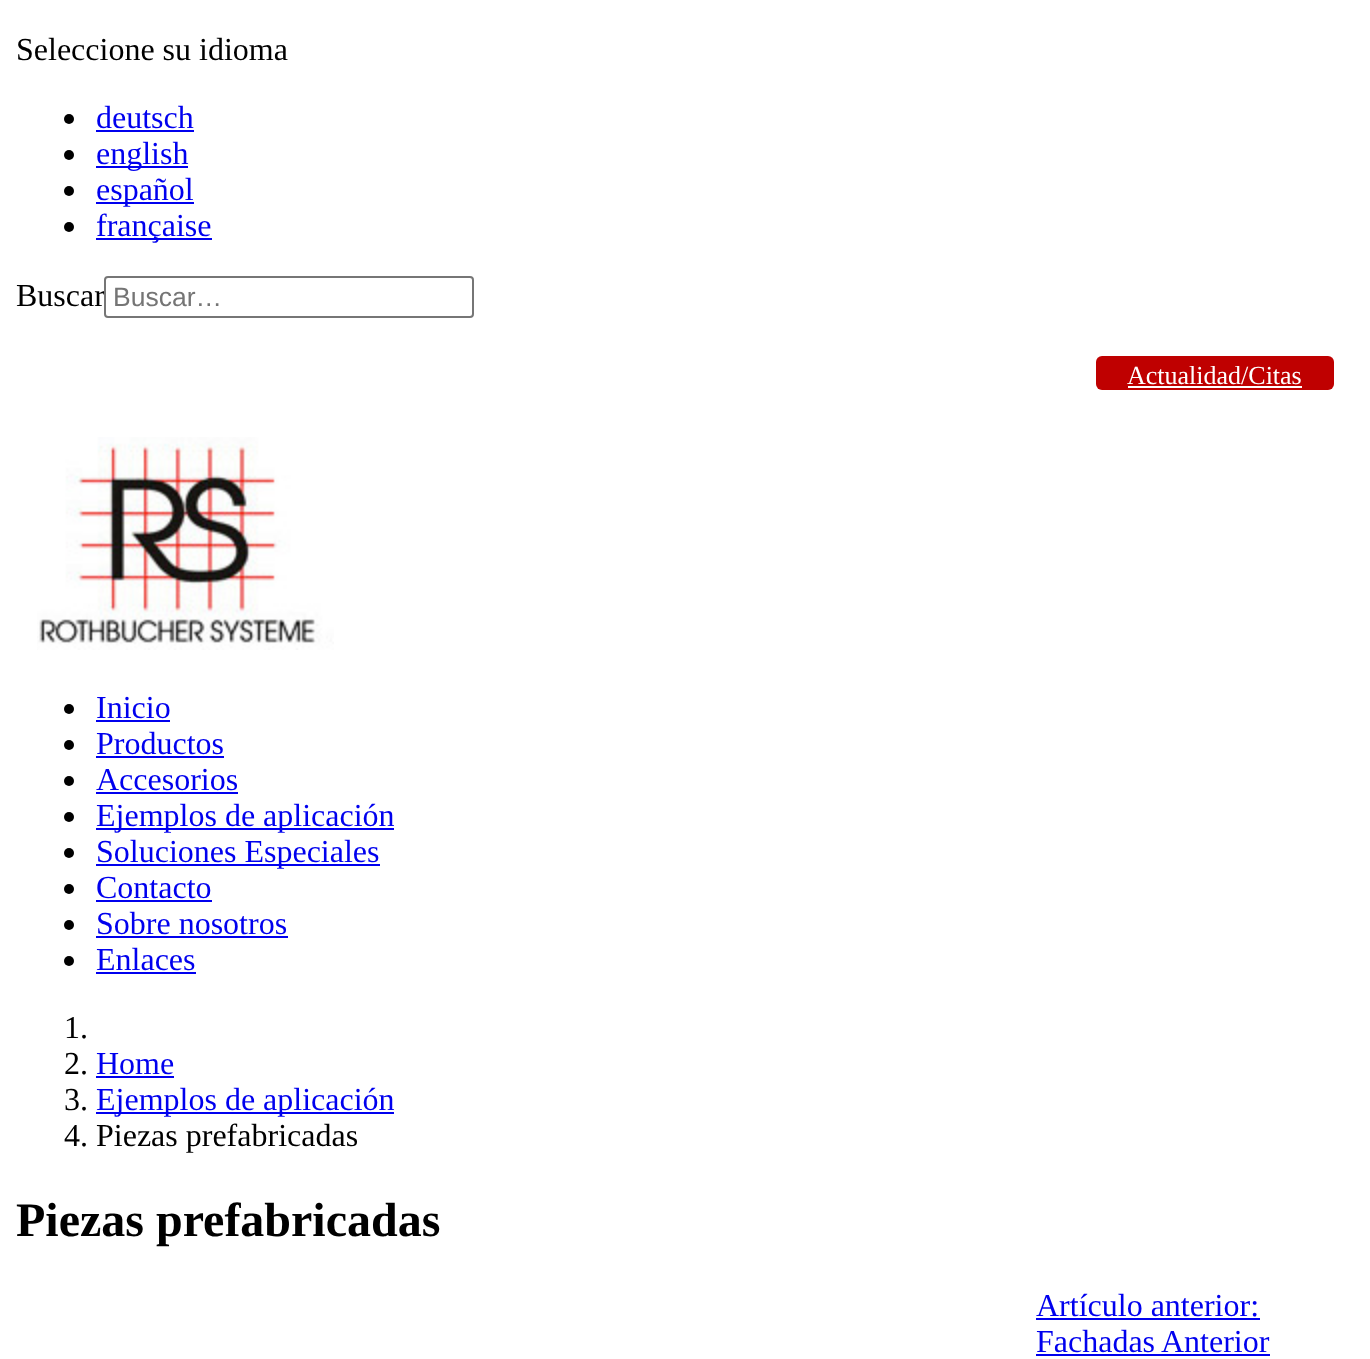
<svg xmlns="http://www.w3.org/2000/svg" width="1370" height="1359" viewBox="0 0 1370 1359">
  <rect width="100%" height="100%" fill="rgb(255,255,255)"/>
  <text x="16" y="60" font-family="Liberation Serif" font-size="32" fill="rgb(0,0,0)">Seleccione su idioma</text>
  <circle cx="69" cy="119" r="5" fill="rgb(0,0,0)"/>
  <text x="96" y="128" font-family="Liberation Serif" font-size="32" fill="rgb(0,0,238)">deutsch</text>
  <rect x="96" y="130" width="98" height="2" fill="rgb(0,0,238)"/>
  <circle cx="69" cy="155" r="5" fill="rgb(0,0,0)"/>
  <rect x="96" y="166" width="92" height="2" fill="rgb(0,0,238)"/>
  <text x="96" y="164" font-family="Liberation Serif" font-size="32" fill="rgb(0,0,238)">english</text>
  <circle cx="69" cy="191" r="5" fill="rgb(0,0,0)"/>
  <rect x="96" y="202" width="98" height="2" fill="rgb(0,0,238)"/>
  <text x="96" y="200" font-family="Liberation Serif" font-size="32" fill="rgb(0,0,238)">español</text>
  <circle cx="69" cy="227" r="5" fill="rgb(0,0,0)"/>
  <rect x="96" y="238" width="116" height="2" fill="rgb(0,0,238)"/>
  <text x="96" y="236" font-family="Liberation Serif" font-size="32" fill="rgb(0,0,238)">française</text>
  <text x="16" y="306" font-family="Liberation Serif" font-size="32" fill="rgb(0,0,0)">Buscar</text>
  <rect x="105" y="277" width="368" height="40" rx="3" fill="rgb(255,255,255)" stroke="rgb(118,118,118)" stroke-width="2"/>
  <text x="113" y="306" font-family="Liberation Sans" font-size="26.5" fill="rgb(117,117,117)">Buscar…</text>
  <rect x="1096" y="356" width="238" height="34" rx="6" fill="rgb(191,0,0)"/>
  <text x="1127" y="384" font-family="Liberation Serif" font-size="26" fill="rgb(255,255,255)">Actualidad/Citas</text>
  <rect x="1128" y="386" width="174" height="2" fill="rgb(255,255,255)"/>
  <image x="37" y="437" width="297" height="213" href="pic1.png"/>
  <circle cx="69" cy="709" r="5" fill="rgb(0,0,0)"/>
  <text x="96" y="718" font-family="Liberation Serif" font-size="32" fill="rgb(0,0,238)">Inicio</text>
  <rect x="96" y="720" width="74" height="2" fill="rgb(0,0,238)"/>
  <circle cx="69" cy="745" r="5" fill="rgb(0,0,0)"/>
  <text x="96" y="754" font-family="Liberation Serif" font-size="32" fill="rgb(0,0,238)">Productos</text>
  <rect x="96" y="756" width="128" height="2" fill="rgb(0,0,238)"/>
  <circle cx="69" cy="781" r="5" fill="rgb(0,0,0)"/>
  <text x="96" y="790" font-family="Liberation Serif" font-size="32" fill="rgb(0,0,238)">Accesorios</text>
  <rect x="96" y="792" width="142" height="2" fill="rgb(0,0,238)"/>
  <circle cx="69" cy="817" r="5" fill="rgb(0,0,0)"/>
  <rect x="96" y="828" width="298" height="2" fill="rgb(0,0,238)"/>
  <text x="96" y="826" font-family="Liberation Serif" font-size="32" fill="rgb(0,0,238)">Ejemplos de aplicación</text>
  <circle cx="69" cy="853" r="5" fill="rgb(0,0,0)"/>
  <rect x="96" y="864" width="284" height="2" fill="rgb(0,0,238)"/>
  <text x="96" y="862" font-family="Liberation Serif" font-size="32" fill="rgb(0,0,238)">Soluciones Especiales</text>
  <circle cx="69" cy="889" r="5" fill="rgb(0,0,0)"/>
  <text x="96" y="898" font-family="Liberation Serif" font-size="32" fill="rgb(0,0,238)">Contacto</text>
  <rect x="96" y="900" width="116" height="2" fill="rgb(0,0,238)"/>
  <circle cx="69" cy="925" r="5" fill="rgb(0,0,0)"/>
  <text x="96" y="934" font-family="Liberation Serif" font-size="32" fill="rgb(0,0,238)">Sobre nosotros</text>
  <rect x="96" y="936" width="192" height="2" fill="rgb(0,0,238)"/>
  <circle cx="69" cy="961" r="5" fill="rgb(0,0,0)"/>
  <text x="96" y="970" font-family="Liberation Serif" font-size="32" fill="rgb(0,0,238)">Enlaces</text>
  <rect x="96" y="972" width="100" height="2" fill="rgb(0,0,238)"/>
  <g font-family="Liberation Serif" font-size="32" fill="rgb(0,0,0)">
    <text>
      <tspan x="64" y="1038">1.</tspan>
      <tspan x="64" y="1074">2.</tspan>
    </text>
  </g>
  <text x="96" y="1074" font-family="Liberation Serif" font-size="32" fill="rgb(0,0,238)">Home</text>
  <rect x="96" y="1076" width="78" height="2" fill="rgb(0,0,238)"/>
  <text x="64" y="1110" font-family="Liberation Serif" font-size="32" fill="rgb(0,0,0)">3.</text>
  <rect x="96" y="1112" width="298" height="2" fill="rgb(0,0,238)"/>
  <text x="96" y="1110" font-family="Liberation Serif" font-size="32" fill="rgb(0,0,238)">Ejemplos de aplicación</text>
  <text x="64" y="1146" font-family="Liberation Serif" font-size="32" fill="rgb(0,0,0)">4. Piezas prefabricadas</text>
  <text x="16" y="1236" font-family="Liberation Serif" font-size="48" font-weight="bold" fill="rgb(0,0,0)">Piezas prefabricadas</text>
  <text x="1036" y="1316" font-family="Liberation Serif" font-size="32" fill="rgb(0,0,238)">Artículo anterior:</text>
  <rect x="1036" y="1318" width="224" height="2" fill="rgb(0,0,238)"/>
  <g font-family="Liberation Serif" font-size="32" fill="rgb(0,0,238)">
    <text x="1036" y="1352">Fachadas</text>
    <text x="1161" y="1352">Anterior</text>
  </g>
  <rect x="1036" y="1354" width="234" height="2" fill="rgb(0,0,238)"/>
</svg>
